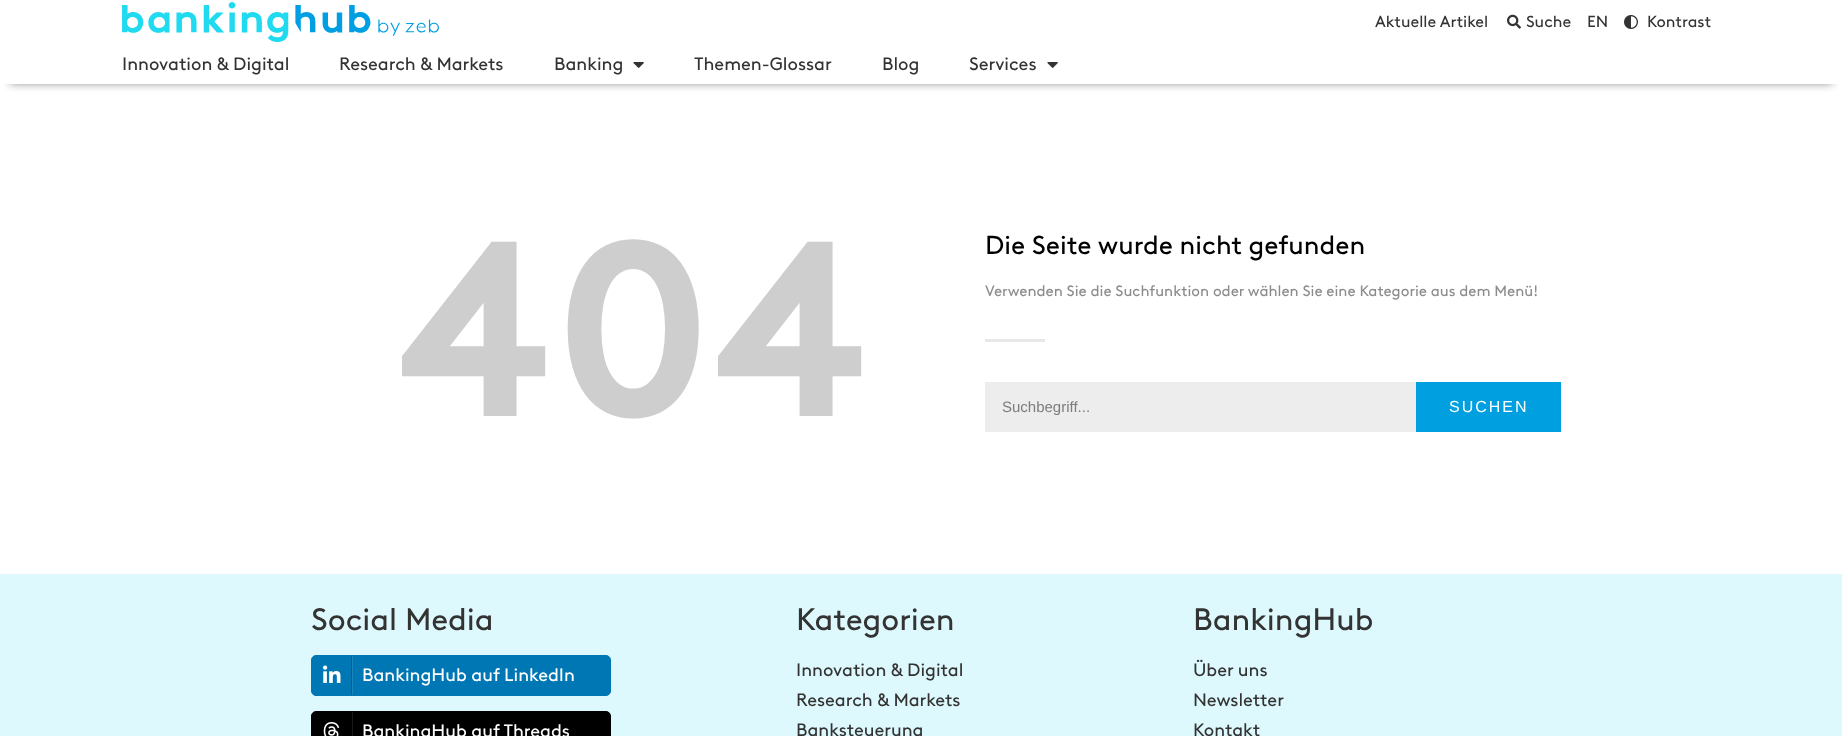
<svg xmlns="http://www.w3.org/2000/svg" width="1842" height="736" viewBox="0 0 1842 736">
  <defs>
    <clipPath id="clip1"><rect x="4" y="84" width="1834" height="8"/></clipPath>
  </defs>
  <rect width="100%" height="100%" fill="rgb(255,255,255)"/>
  <image x="122" y="2" width="317" height="40" href="pic1.png"/>
  <text x="1375" y="27" font-family="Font" font-size="16" fill="rgb(51,51,51)">Aktuelle Artikel</text>
  <image x="1507" y="14" width="14" height="15" href="pic2.png"/>
  <g font-family="Font" font-size="16" fill="rgb(51,51,51)">
    <text x="1526" y="27">Suche</text>
    <text x="1587" y="27">EN</text>
  </g>
  <image x="1624" y="15" width="14" height="14" href="pic3.png"/>
  <text x="1647" y="27" font-family="Font" font-size="16" fill="rgb(51,51,51)">Kontrast</text>
  <g clip-path="url(#clip1)">
    <rect x="10" y="63" width="1822" height="20" fill="rgba(0,0,0,0.5)" filter="blur(5px)"/>
  </g>
  <g font-family="Font" font-size="18" fill="rgb(51,51,51)">
    <text x="122" y="70">Innovation &amp; Digital</text>
    <text x="339" y="70">Research &amp; Markets</text>
    <text x="554" y="70">Banking</text>
  </g>
  <image x="633" y="62" width="11" height="6" href="pic4.png"/>
  <g font-family="Font" font-size="18" fill="rgb(51,51,51)">
    <text x="694" y="70">Themen-Glossar</text>
    <text x="882" y="70">Blog</text>
    <text x="969" y="70">Services</text>
  </g>
  <image x="1047" y="62" width="11" height="6" href="pic4.png"/>
  <text x="396" y="416" font-family="Font" font-size="249" font-weight="bold" fill="rgb(206,206,206)">404</text>
  <text x="985" y="254" font-family="Font" font-size="26" fill="rgb(0,0,0)">Die Seite wurde nicht gefunden</text>
  <text x="985" y="296" font-family="Font" font-size="15" fill="rgb(140,140,140)">Verwenden Sie die Suchfunktion oder wählen Sie eine Kategorie aus dem Menü!</text>
  <rect x="985" y="339" width="60" height="3" fill="rgb(232,232,232)"/>
  <rect x="985" y="382" width="431" height="50" fill="rgb(237,237,237)"/>
  <text x="1002" y="412" font-family="Liberation Sans" font-size="15" fill="rgb(125,125,125)">Suchbegriff...</text>
  <rect x="1416" y="382" width="145" height="50" fill="rgb(0,159,224)"/>
  <text x="1449" y="412" font-family="Liberation Sans" font-size="16" letter-spacing="2" fill="rgb(255,255,255)">SUCHEN</text>
  <rect x="0" y="574" width="1842" height="162" fill="rgb(222,249,253)"/>
  <text x="311" y="630" font-family="Font" font-size="31" fill="rgb(51,51,51)">Social Media</text>
  <rect x="311.5" y="655.5" width="299" height="40" rx="4.5" fill="rgb(0,119,181)" stroke="rgb(0,119,181)"/>
  <rect x="352" y="656" width="1" height="39" fill="rgb(26,133,188)"/>
  <rect x="351" y="656" width="1" height="39" fill="rgb(0,95,145)"/>
  <image x="323" y="665" width="18" height="18" href="pic5.png"/>
  <text x="362" y="681" font-family="Font" font-size="18" fill="rgb(255,255,255)">BankingHub auf LinkedIn</text>
  <rect x="311.5" y="711.5" width="299" height="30" rx="4.5" fill="rgb(0,0,0)" stroke="rgb(0,0,0)"/>
  <rect x="352" y="712" width="1" height="24" fill="rgb(26,26,26)"/>
  <image x="323" y="722" width="17" height="14" href="pic6.png"/>
  <text x="362" y="737" font-family="Font" font-size="18" fill="rgb(255,255,255)">BankingHub auf Threads</text>
  <text x="796" y="630" font-family="Font" font-size="31" fill="rgb(51,51,51)">Kategorien</text>
  <g font-family="Font" font-size="18" fill="rgb(51,51,51)">
    <text>
      <tspan x="796" y="676">Innovation &amp; Digital</tspan>
      <tspan x="796" y="706">Research &amp; Markets</tspan>
      <tspan x="796" y="736">Banksteuerung</tspan>
    </text>
  </g>
  <text x="1193" y="630" font-family="Font" font-size="31" fill="rgb(51,51,51)">BankingHub</text>
  <g font-family="Font" font-size="18" fill="rgb(51,51,51)">
    <text>
      <tspan x="1193" y="676">Über uns</tspan>
      <tspan x="1193" y="706">Newsletter</tspan>
      <tspan x="1193" y="736">Kontakt</tspan>
    </text>
  </g>
</svg>
